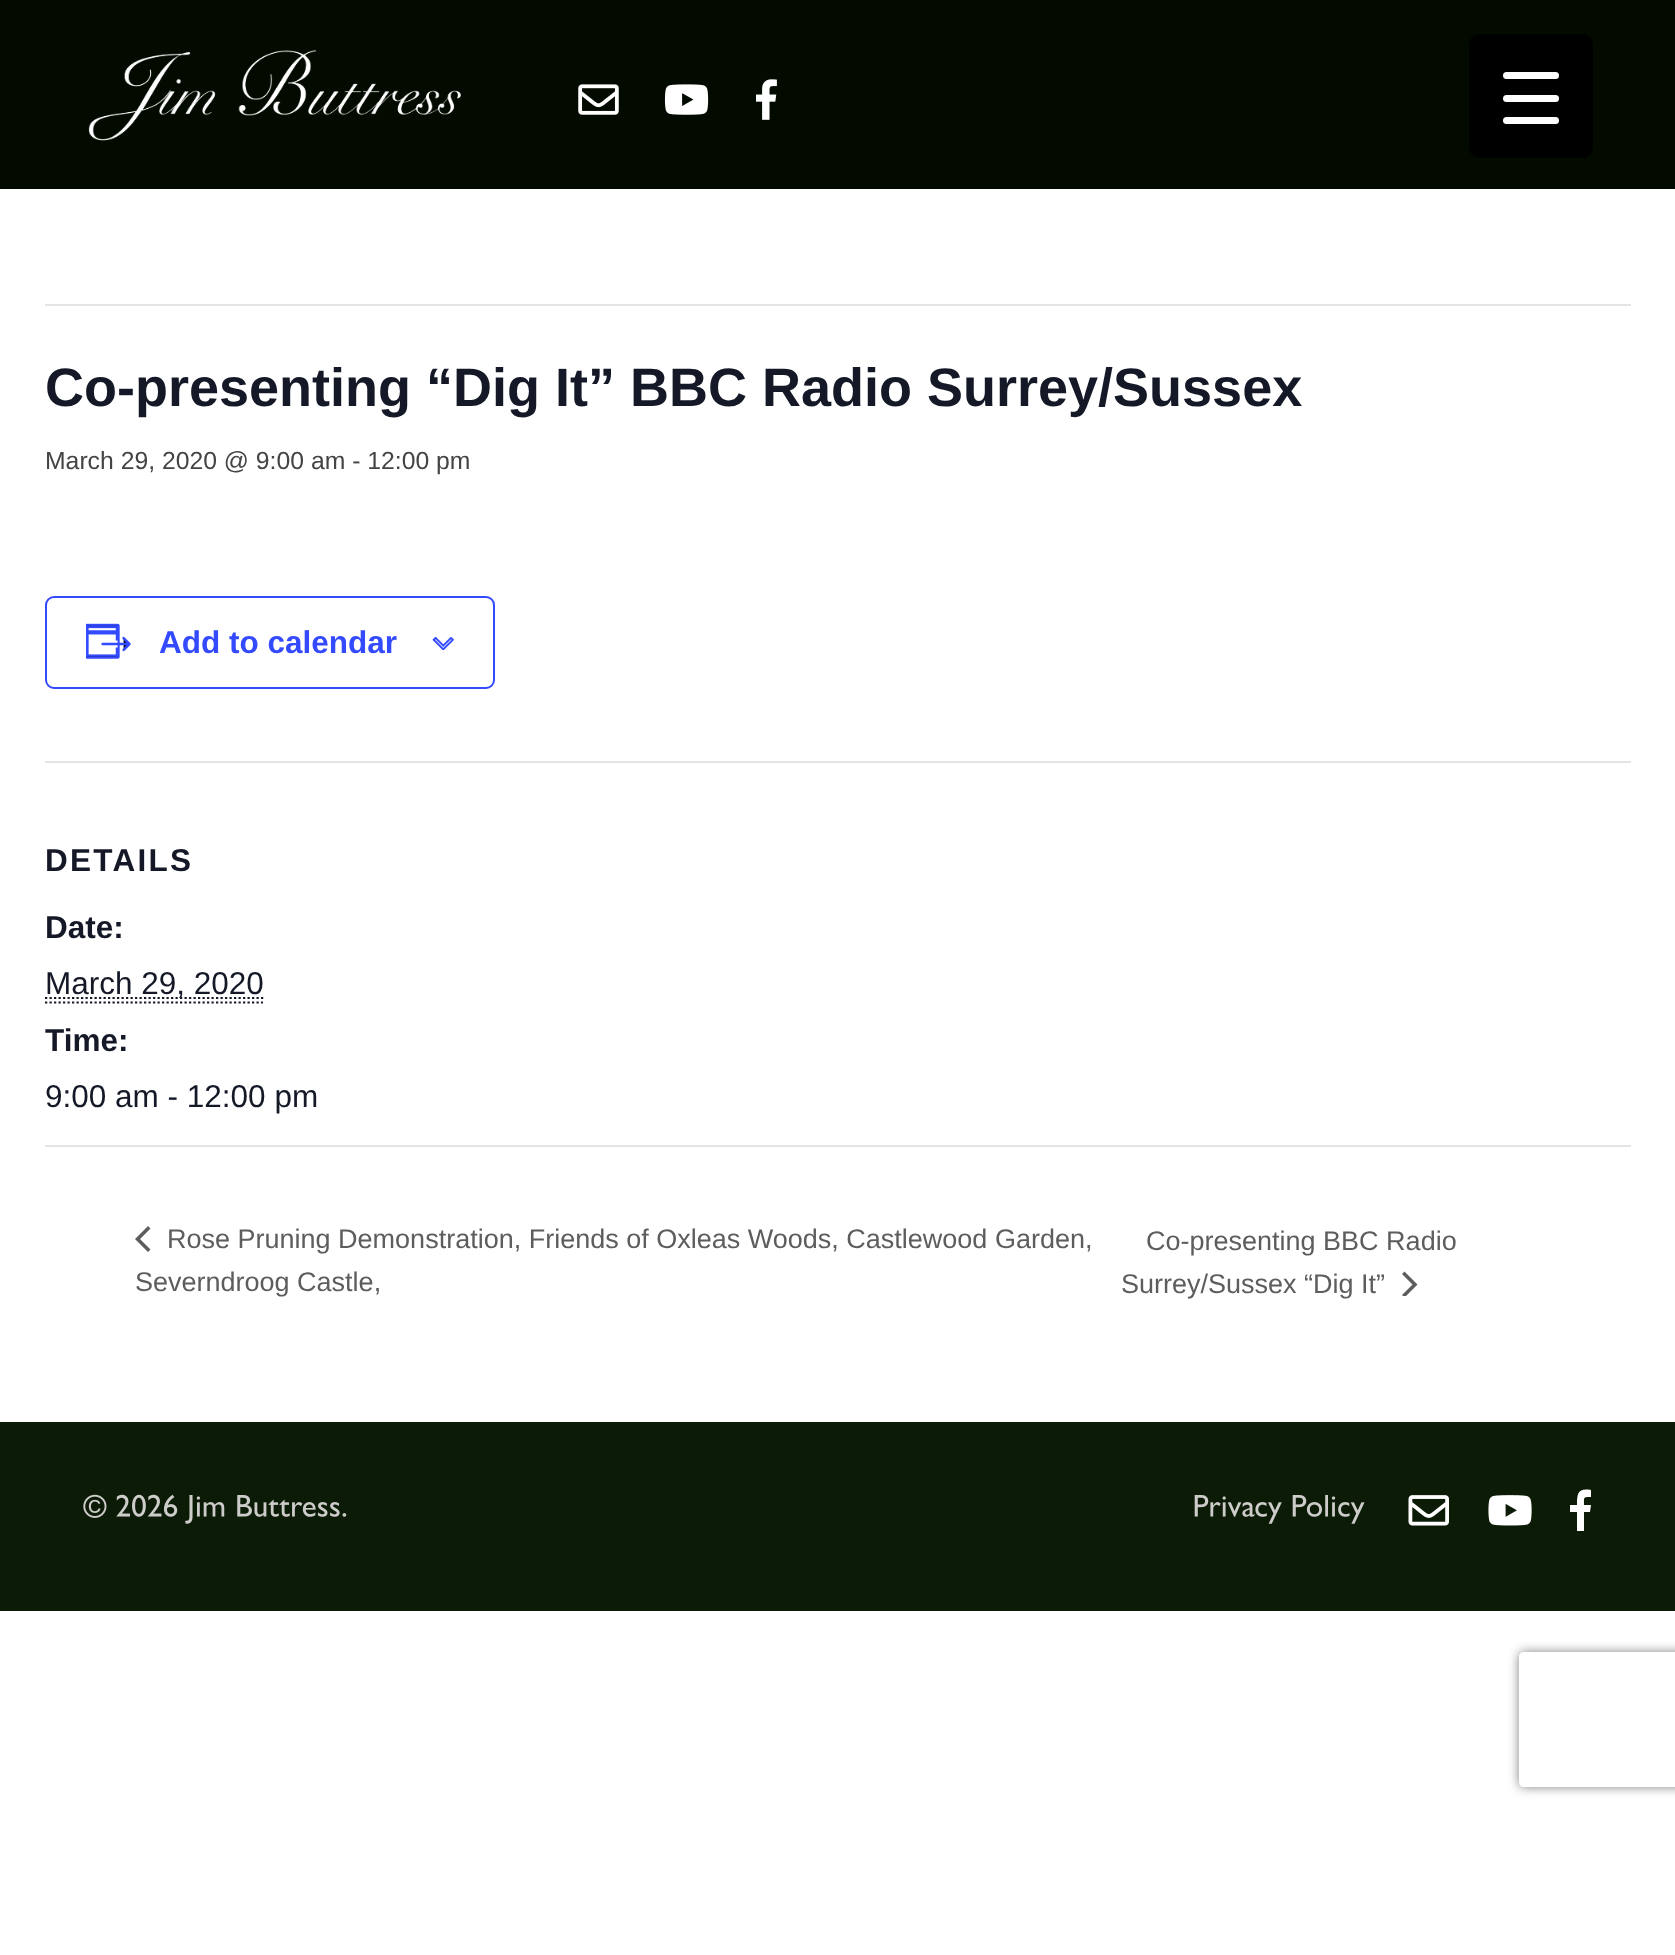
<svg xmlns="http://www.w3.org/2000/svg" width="1675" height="1955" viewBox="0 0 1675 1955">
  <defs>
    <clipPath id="clip1"><rect x="1402" y="1271" width="16" height="25"/></clipPath>
    <clipPath id="clip2"><path d="M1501 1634H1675V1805H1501ZM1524 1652H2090C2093 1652 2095 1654 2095 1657V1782C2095 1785 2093 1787 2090 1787H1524C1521 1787 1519 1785 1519 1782V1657C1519 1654 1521 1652 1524 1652Z" clip-rule="evenodd"/></clipPath>
  </defs>
  <rect width="100%" height="100%" fill="rgb(255,255,255)"/>
  <rect x="0" y="0" width="1675" height="189" fill="rgb(3,10,0)"/>
  <image x="88" y="49" width="373" height="92" href="pic1.png"/>
  <image x="578" y="84" width="41" height="31" href="pic2.png"/>
  <image x="664" y="84" width="45" height="31" href="pic3.png"/>
  <image x="756" y="79" width="21" height="41" href="pic4.png"/>
  <rect x="1469" y="34" width="124" height="124" rx="11" fill="rgb(0,0,0)"/>
  <rect x="1503" y="95" width="56" height="7" rx="3.5" fill="rgb(255,255,255)"/>
  <rect x="1503" y="72" width="56" height="7" rx="3.5" fill="rgb(255,255,255)"/>
  <rect x="1503" y="117" width="56" height="7" rx="3.5" fill="rgb(255,255,255)"/>
  <rect x="45" y="304" width="1586" height="2" fill="rgb(228,228,228)"/>
  <text x="45" y="406" font-family="Liberation Sans" font-size="54" font-weight="bold" fill="rgb(20,24,39)">Co-presenting “Dig It” BBC Radio Surrey/Sussex</text>
  <text x="45" y="469" font-family="Liberation Sans" font-size="24.75" fill="rgb(68,68,68)">March 29, 2020 @ 9:00 am - 12:00 pm</text>
  <rect x="46" y="597" width="448" height="91" rx="8" fill="none" stroke="rgb(51,74,255)" stroke-width="2"/>
  <image x="86" y="623" width="45" height="36" href="pic5.png"/>
  <text x="159" y="653" font-family="Liberation Sans" font-size="31.5" font-weight="bold" fill="rgb(51,74,255)">Add to calendar</text>
  <image x="432" y="637" width="22" height="13" href="pic6.png"/>
  <rect x="45" y="761" width="1586" height="2" fill="rgb(228,228,228)"/>
  <text x="45" y="871" font-family="Liberation Sans" font-size="31.5" font-weight="bold" letter-spacing="2.25" fill="rgb(20,24,39)">DETAILS</text>
  <text x="45" y="938" font-family="Liberation Sans" font-size="31.5" font-weight="bold" fill="rgb(20,24,39)">Date:</text>
  <path d="M45 998H264" fill="none" stroke="rgb(20,24,39)" stroke-width="2.2" stroke-dasharray="2.25 2.25"/>
  <text x="45" y="994" font-family="Liberation Sans" font-size="31.5" fill="rgb(20,24,39)">March 29, 2020</text>
  <path d="M45 1002.5H263" fill="none" stroke="rgb(20,24,39)" stroke-width="2.2" stroke-dasharray="2.25 2.25"/>
  <text x="45" y="1051" font-family="Liberation Sans" font-size="31.5" font-weight="bold" fill="rgb(20,24,39)">Time:</text>
  <text x="45" y="1107" font-family="Liberation Sans" font-size="31.5" fill="rgb(20,24,39)">9:00 am - 12:00 pm</text>
  <rect x="45" y="1145" width="1586" height="2" fill="rgb(228,228,228)"/>
  <path d="M150.5 1249.5L148 1252L135 1239L148 1226L150.5 1228.5L140 1239Z" fill="rgb(93,93,93)"/>
  <g font-family="Liberation Sans" font-size="27" fill="rgb(93,93,93)">
    <text x="167" y="1248">Rose Pruning Demonstration, Friends of Oxleas Woods, Castlewood Garden,</text>
    <text x="135" y="1291">Severndroog Castle,</text>
    <text x="1146" y="1250">Co-presenting BBC Radio</text>
    <text x="1121" y="1293">Surrey/Sussex “Dig It”</text>
  </g>
  <g clip-path="url(#clip1)">
    <path d="M1402 1274L1404.5 1271.5L1417.5 1284.5L1404.5 1297.5L1402 1295L1412.5 1284.5Z" fill="rgb(93,93,93)"/>
  </g>
  <rect x="0" y="1422" width="1675" height="189" fill="rgb(11,27,5)"/>
  <image x="83" y="1494" width="264" height="30" href="pic7.png"/>
  <image x="1194" y="1495" width="171" height="29" href="pic8.png"/>
  <image x="1408" y="1495" width="41" height="31" href="pic9.png"/>
  <image x="1488" y="1495" width="44" height="31" href="pic10.png"/>
  <path d="M1577 1531V1512H1570V1505H1577C1577 1493 1578 1488 1591 1490V1497C1583 1497 1584 1497 1584 1505H1591L1590 1512H1584V1531Z" fill="rgb(255,255,255)"/>
  <g clip-path="url(#clip2)">
    <rect x="1519" y="1652" width="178" height="135" rx="5" fill="rgb(128,128,128)" filter="blur(5.5px)"/>
  </g>
</svg>
